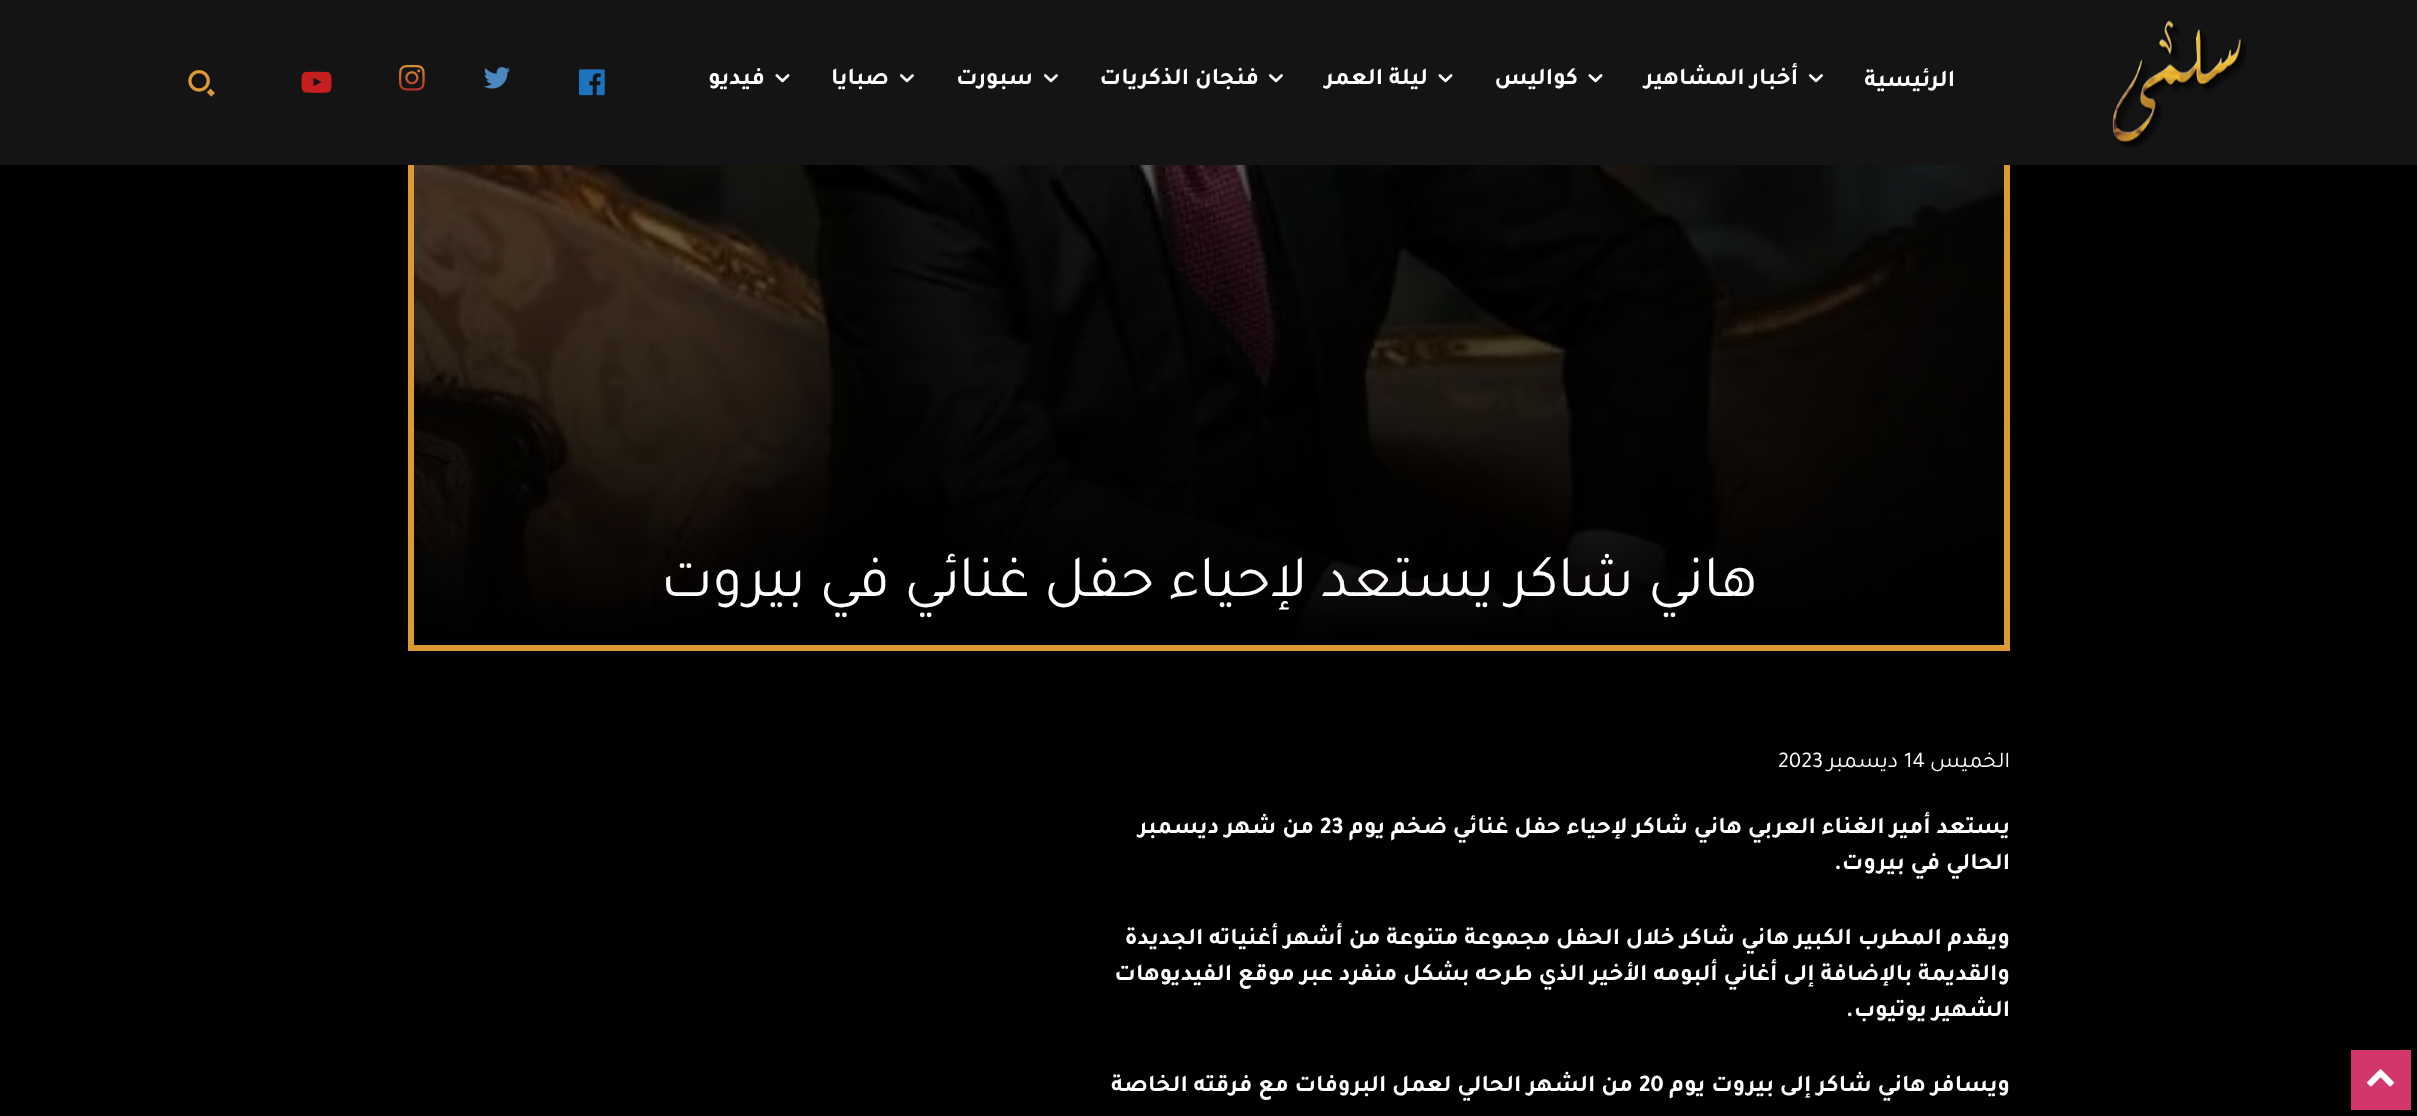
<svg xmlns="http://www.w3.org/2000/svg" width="2417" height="1116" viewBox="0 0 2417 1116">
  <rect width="100%" height="100%" fill="rgb(0,0,0)"/>
  <rect x="2351" y="1050" width="60" height="60" fill="rgb(210,54,109)"/>
  <image x="2367" y="1069" width="27" height="18" href="pic1.png"/>
  <rect x="411" y="-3" width="1596" height="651" fill="none" stroke="rgb(221,153,51)" stroke-width="6"/>
  <rect x="0" y="0" width="2417" height="165" fill="rgb(20,20,20)"/>
  <image x="2112" y="20" width="135" height="128" href="pic2.png"/>
  <text x="1955" y="86" font-family="Tajawal" font-size="24" font-weight="bold" direction="rtl" fill="rgb(255,255,255)">الرئيسية</text>
  <image x="1809" y="74" width="14" height="9" href="pic3.png"/>
  <text x="1798" y="84" font-family="Tajawal" font-size="24" font-weight="bold" direction="rtl" fill="rgb(255,255,255)">أخبار المشاهير</text>
  <image x="1588" y="74" width="15" height="9" href="pic4.png"/>
  <text x="1578" y="84" font-family="Tajawal" font-size="24" font-weight="bold" direction="rtl" fill="rgb(255,255,255)">كواليس</text>
  <image x="1438" y="74" width="15" height="9" href="pic4.png"/>
  <text x="1428" y="84" font-family="Tajawal" font-size="24" font-weight="bold" direction="rtl" fill="rgb(255,255,255)">ليلة العمر</text>
  <image x="1269" y="74" width="14" height="9" href="pic3.png"/>
  <text x="1259" y="84" font-family="Tajawal" font-size="24" font-weight="bold" direction="rtl" fill="rgb(255,255,255)">فنجان الذكريات</text>
  <image x="1044" y="74" width="14" height="9" href="pic3.png"/>
  <text x="1033" y="84" font-family="Tajawal" font-size="24" font-weight="bold" direction="rtl" fill="rgb(255,255,255)">سبورت</text>
  <image x="900" y="74" width="14" height="9" href="pic3.png"/>
  <text x="889" y="84" font-family="Tajawal" font-size="24" font-weight="bold" direction="rtl" fill="rgb(255,255,255)">صبايا</text>
  <image x="775" y="74" width="15" height="9" href="pic4.png"/>
  <text x="765" y="84" font-family="Tajawal" font-size="24" font-weight="bold" direction="rtl" fill="rgb(255,255,255)">فيديو</text>
  <image x="579" y="69" width="26" height="27" href="pic5.png"/>
  <image x="484" y="67" width="26" height="22" href="pic6.png"/>
  <image x="399" y="64" width="26" height="27" href="pic7.png"/>
  <image x="301" y="71" width="31" height="22" href="pic8.png"/>
  <image x="188" y="70" width="27" height="27" href="pic9.png"/>
  <image x="414" y="165" width="1590" height="480" href="pic10.png"/>
  <text x="1758" y="596" font-family="Tajawal" font-size="60" direction="rtl" fill="rgb(255,255,255)">هاني شاكر يستعد لإحياء حفل غنائي في بيروت</text>
  <text x="2010" y="767" font-family="Tajawal" font-size="22.5" direction="rtl" fill="rgb(255,255,255)">الخميس</text>
  <text x="1904" y="767" font-family="Tajawal" font-size="22.5" fill="rgb(255,255,255)">14</text>
  <text x="1898" y="767" font-family="Tajawal" font-size="22.5" direction="rtl" fill="rgb(255,255,255)">ديسمبر</text>
  <text x="1778" y="767" font-family="Tajawal" font-size="22.5" fill="rgb(255,255,255)">2023</text>
  <text x="2010" y="833" font-family="Tajawal" font-size="24" font-weight="bold" direction="rtl" fill="rgb(255,255,255)">يستعد أمير الغناء العربي هاني شاكر لإحياء حفل غنائي ضخم يوم</text>
  <text x="1320" y="833" font-family="Tajawal" font-size="24" font-weight="bold" fill="rgb(255,255,255)">23</text>
  <g font-family="Tajawal" font-size="24" font-weight="bold" direction="rtl" fill="rgb(255,255,255)">
    <text x="1314" y="833">من شهر ديسمبر</text>
    <text x="2010" y="869">الحالي في بيروت.</text>
    <text>
      <tspan x="2010" y="944">ويقدم المطرب الكبير هاني شاكر خلال الحفل مجموعة متنوعة من أشهر أغنياته الجديدة</tspan>
      <tspan x="2010" y="980">والقديمة بالإضافة إلى أغاني ألبومه الأخير الذي طرحه بشكل منفرد عبر موقع الفيديوهات</tspan>
      <tspan x="2010" y="1016">الشهير يوتيوب.</tspan>
    </text>
    <text x="2010" y="1091">ويسافر هاني شاكر إلى بيروت يوم</text>
  </g>
  <text x="1639" y="1091" font-family="Tajawal" font-size="24" font-weight="bold" fill="rgb(255,255,255)">20</text>
  <text x="1633" y="1091" font-family="Tajawal" font-size="24" font-weight="bold" direction="rtl" fill="rgb(255,255,255)">من الشهر الحالي لعمل البروفات مع فرقته الخاصة</text>
</svg>
